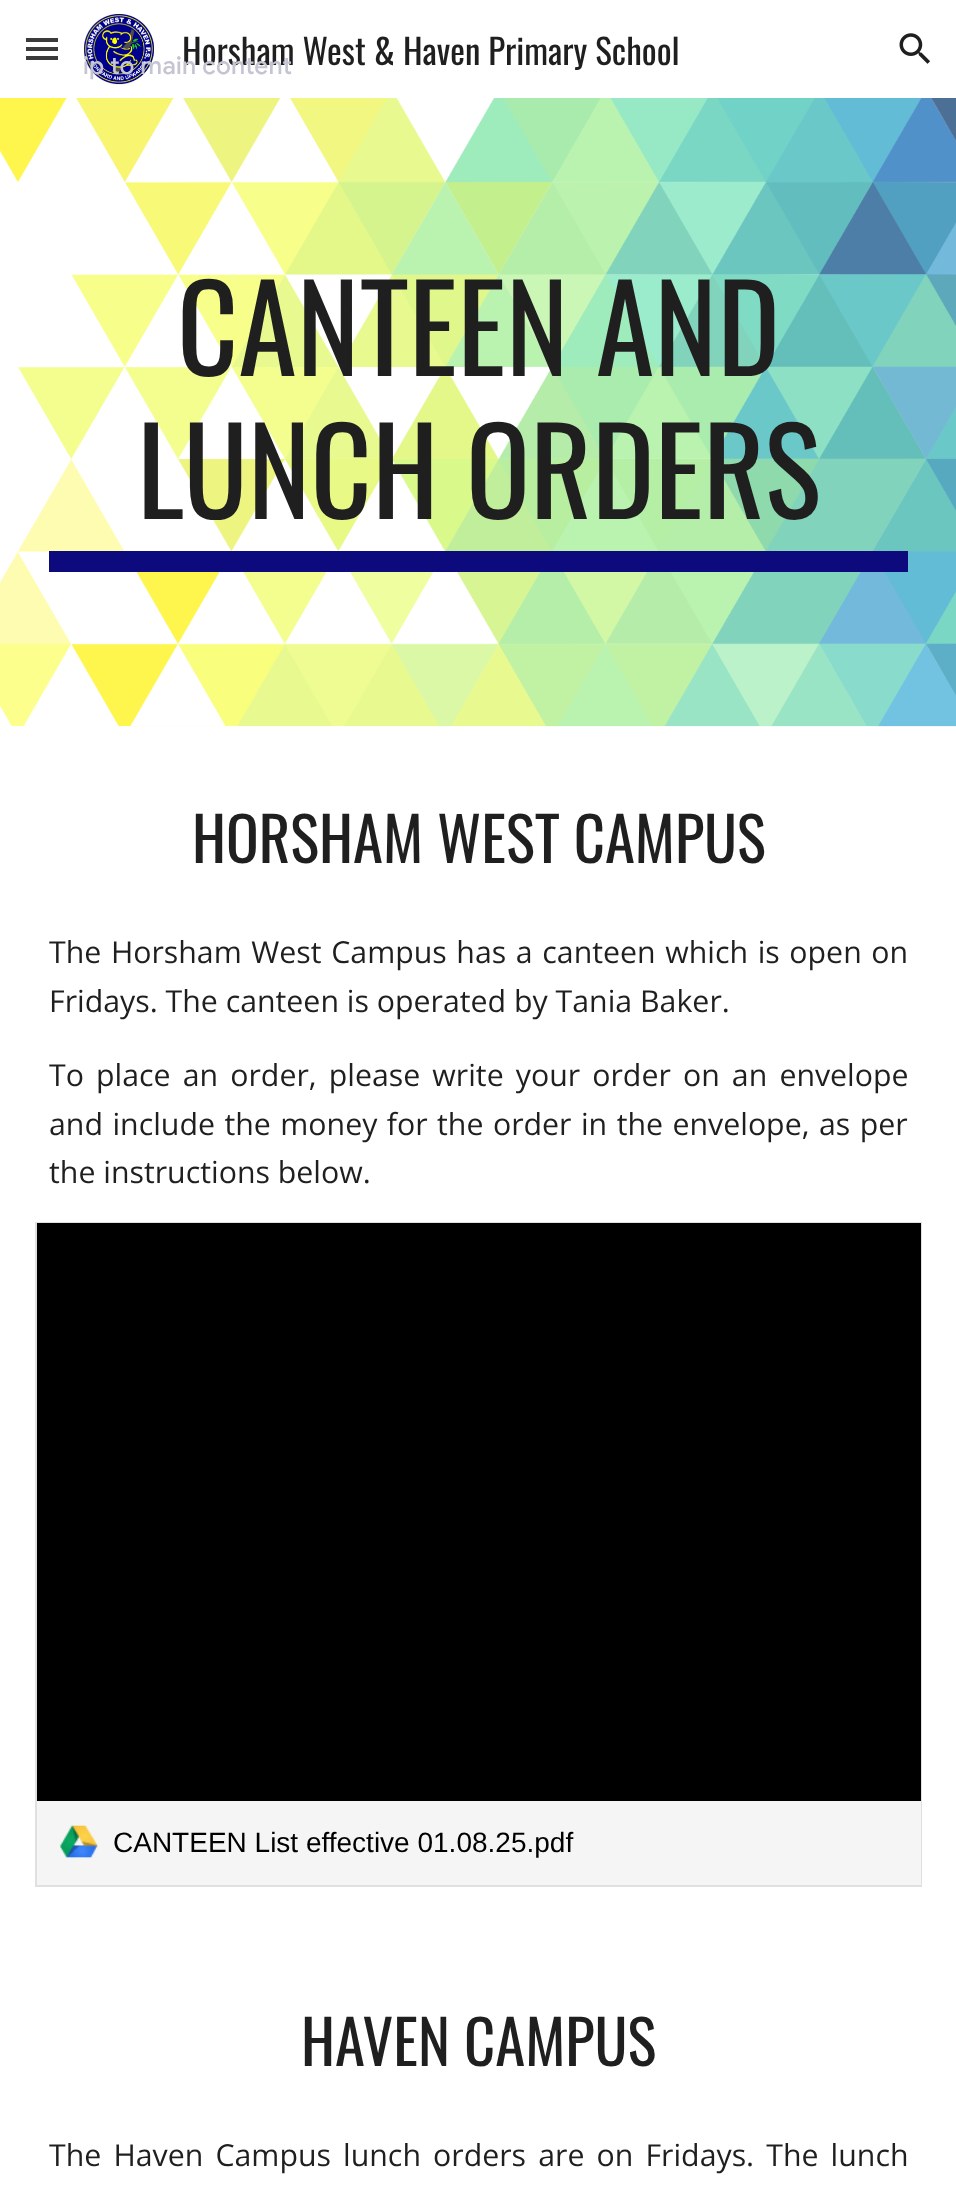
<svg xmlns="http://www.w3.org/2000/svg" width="956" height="2198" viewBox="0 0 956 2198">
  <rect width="100%" height="100%" fill="rgb(255,255,255)"/>
  <image x="84" y="14" width="70" height="71" href="pic1.png"/>
  <text x="182" y="65" font-family="Oswald" font-size="35" fill="rgb(31,31,31)">Horsham West &amp; Haven Primary School</text>
  <text x="83" y="74" font-family="Google Sans" font-size="24.5" font-weight="500" letter-spacing="0.25" fill="rgb(196,196,211)">ip to main content</text>
  <rect x="83" y="57" width="1" height="2" fill="rgb(255,255,255)"/>
  <rect x="26" y="38" width="32" height="4" fill="rgb(59,59,59)"/>
  <rect x="26" y="47" width="32" height="4" fill="rgb(59,59,59)"/>
  <rect x="26" y="56" width="32" height="4" fill="rgb(59,59,59)"/>
  <image x="899" y="33" width="31" height="31" href="pic2.png"/>
  <image x="0" y="98" width="956" height="629" href="pic3.png"/>
  <g font-family="Oswald" font-size="119" fill="rgb(31,31,31)">
    <text x="177" y="376">CANTEEN AND</text>
    <text x="137" y="519">LUNCH ORDERS</text>
  </g>
  <rect x="49" y="551" width="859" height="21" fill="rgb(13,10,125)"/>
  <text x="192" y="863" font-family="Oswald" font-size="60.75" fill="rgb(31,31,31)">HORSHAM WEST CAMPUS</text>
  <g font-family="Open Sans" font-size="30.3" fill="rgb(31,31,31)">
    <text>
      <tspan x="49" y="963" word-spacing="1.75">The Horsham West Campus has a canteen which is open on</tspan>
      <tspan x="49" y="1012">Fridays. The canteen is operated by Tania Baker.</tspan>
    </text>
    <text>
      <tspan x="49" y="1086" word-spacing="4.25">To place an order, please write your order on an envelope</tspan>
      <tspan x="49" y="1135" word-spacing="1.6">and include the money for the order in the envelope, as per</tspan>
      <tspan x="49" y="1183">the instructions below.</tspan>
    </text>
  </g>
  <rect x="36" y="1223" width="885" height="663" fill="none" stroke="rgb(224,224,224)" stroke-width="2"/>
  <rect x="37" y="1223" width="884" height="578" fill="rgb(0,0,0)"/>
  <rect x="37" y="1801" width="884" height="84" fill="rgb(245,245,245)"/>
  <image x="60" y="1825" width="38" height="33" href="pic4.png"/>
  <text x="113" y="1852" font-family="Liberation Sans" font-size="28" fill="rgb(0,0,0)">CANTEEN List effective 01.08.25.pdf</text>
  <text x="301" y="2066" font-family="Oswald" font-size="60.75" fill="rgb(31,31,31)">HAVEN CAMPUS</text>
  <text x="49" y="2166" word-spacing="4.25" font-family="Open Sans" font-size="30.3" fill="rgb(31,31,31)">The Haven Campus lunch orders are on Fridays. The lunch</text>
</svg>
